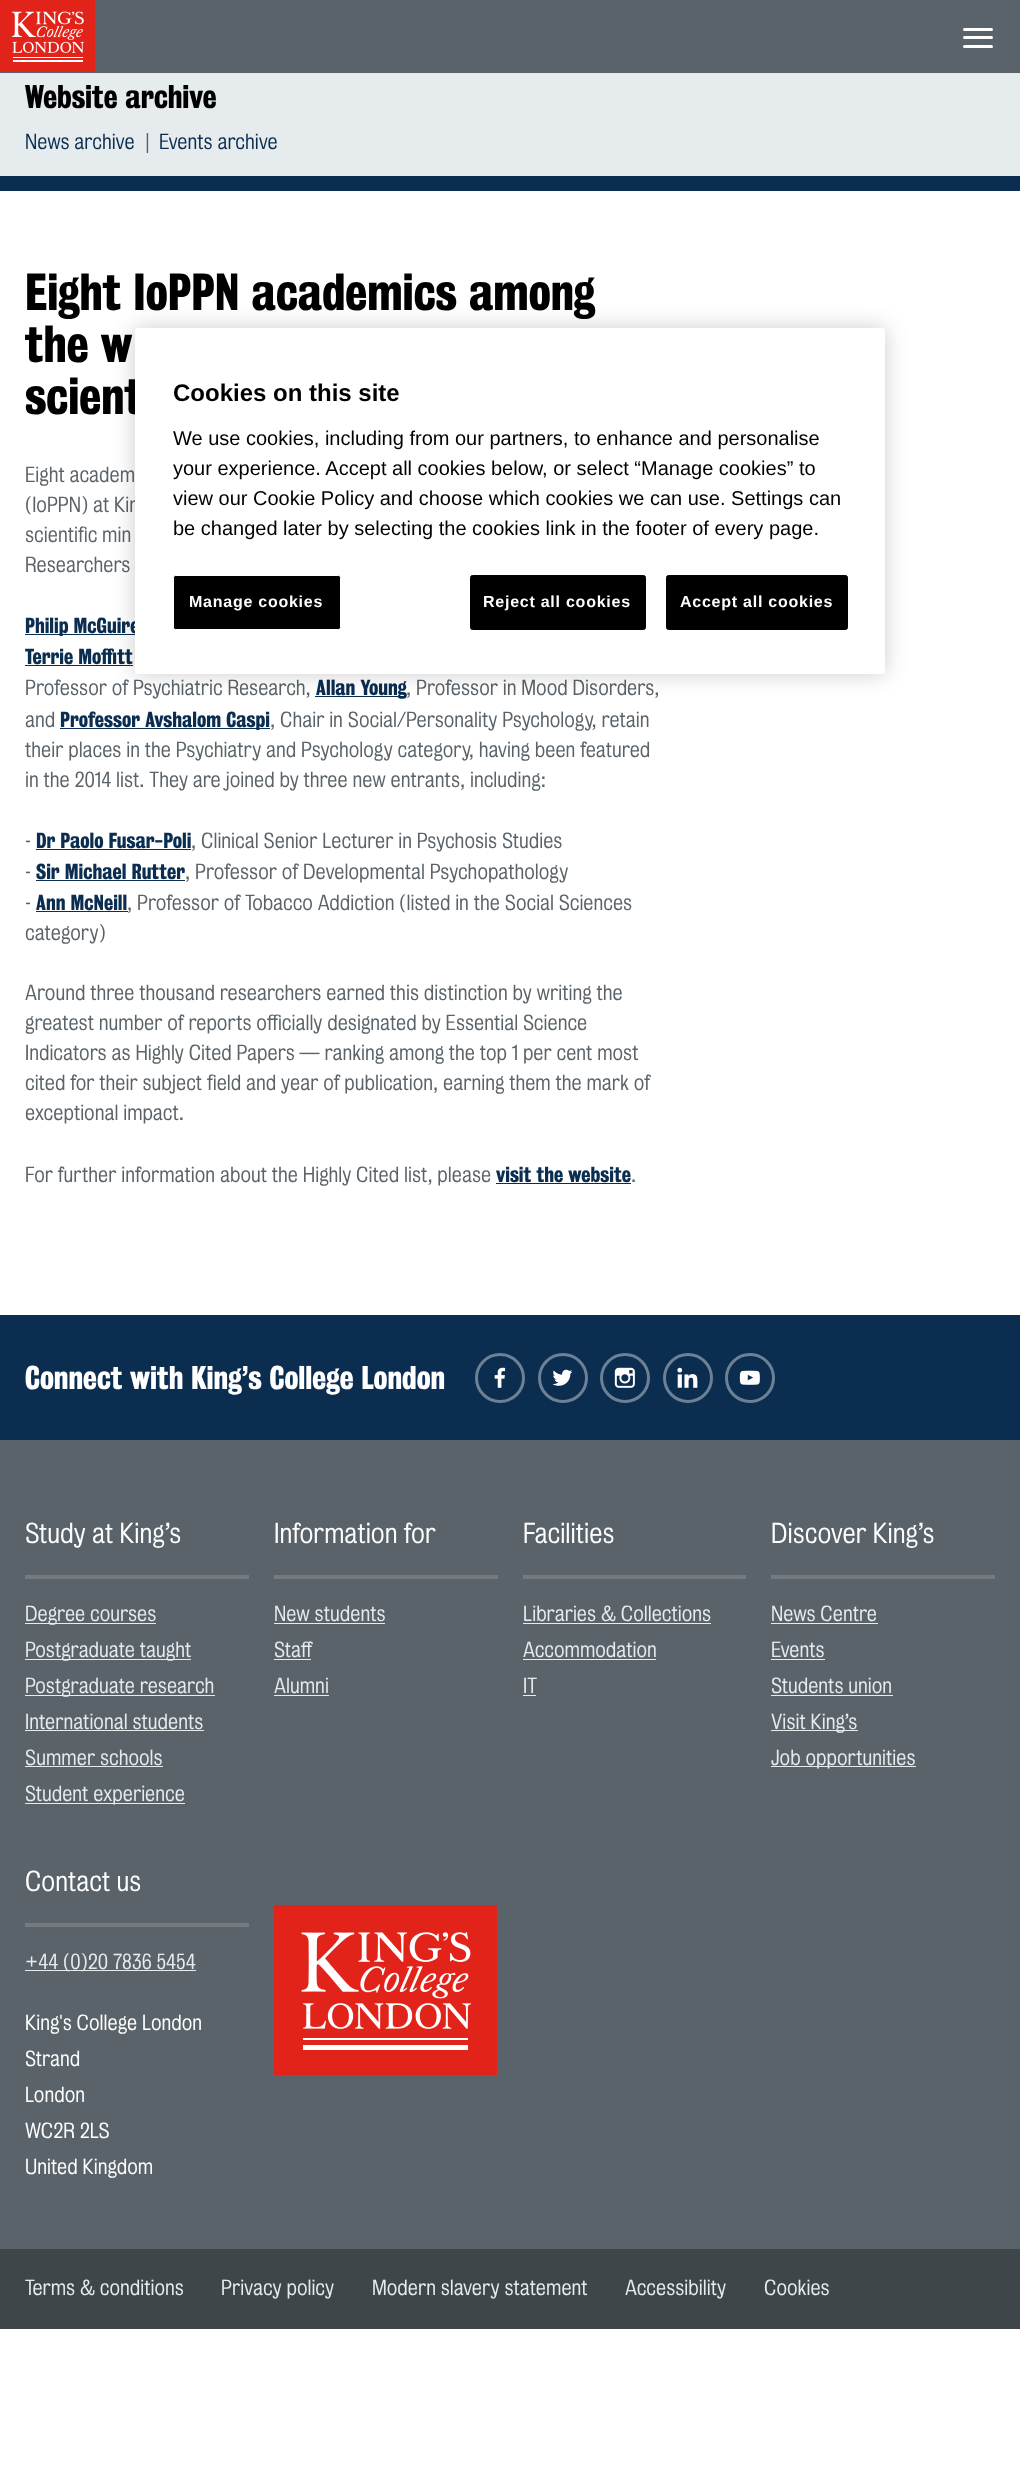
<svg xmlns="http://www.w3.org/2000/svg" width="1020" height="2482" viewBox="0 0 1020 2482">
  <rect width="100%" height="100%" fill="rgb(255,255,255)"/>
  <rect x="0" y="0" width="1020" height="73" fill="rgb(90,99,105)"/>
  <image x="0" y="0" width="95" height="72" href="pic1.png"/>
  <rect x="963" y="28" width="30" height="3" rx="1.5" fill="rgb(255,255,255)"/>
  <rect x="963" y="36" width="30" height="3" rx="1.5" fill="rgb(255,255,255)"/>
  <rect x="963" y="45" width="30" height="3" rx="1.5" fill="rgb(255,255,255)"/>
  <rect x="0" y="73" width="1020" height="103" fill="rgb(230,235,237)"/>
  <text x="25" y="108" font-family="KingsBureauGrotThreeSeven" font-size="30" font-weight="bold" fill="rgb(0,0,0)">Website archive</text>
  <text x="25" y="149" font-family="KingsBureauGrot" font-size="20" font-weight="300" fill="rgb(10,45,80)">News archive</text>
  <text x="145" y="149" font-family="KingsBureauGrot" font-size="20" font-weight="300" fill="rgb(90,99,105)">|</text>
  <text x="159" y="149" font-family="KingsBureauGrot" font-size="20" font-weight="300" fill="rgb(10,45,80)">Events archive</text>
  <rect x="0" y="176" width="1020" height="15" fill="rgb(10,45,80)"/>
  <g font-family="KingsBureauGrotThreeSeven" font-size="47.5" font-weight="bold" fill="rgb(0,0,0)">
    <text>
      <tspan x="25" y="310">Eight IoPPN academics among</tspan>
      <tspan x="25" y="362">the w</tspan>
      <tspan x="25" y="414">scient</tspan>
    </text>
  </g>
  <g font-family="KingsBureauGrot" font-size="20" font-weight="300" fill="rgb(90,99,105)">
    <text>
      <tspan x="25" y="482">Eight academ</tspan>
      <tspan x="25" y="512">(IoPPN) at Kin</tspan>
      <tspan x="25" y="542">scientific min</tspan>
      <tspan x="25" y="572">Researchers</tspan>
    </text>
  </g>
  <rect x="25" y="634" width="115" height="1" fill="rgb(10,45,80)"/>
  <g font-family="KingsBureauGrotThreeSeven" font-size="20" font-weight="bold" fill="rgb(10,45,80)">
    <text>
      <tspan x="25" y="633">Philip McGuire</tspan>
      <tspan x="25" y="664">Terrie Moffitt</tspan>
    </text>
  </g>
  <rect x="25" y="665" width="108" height="1" fill="rgb(10,45,80)"/>
  <text x="25" y="695" font-family="KingsBureauGrot" font-size="20" font-weight="300" fill="rgb(90,99,105)">Professor of Psychiatric Research,</text>
  <rect x="315" y="696" width="91" height="1" fill="rgb(10,45,80)"/>
  <text x="316" y="695" font-family="KingsBureauGrotThreeSeven" font-size="20" font-weight="bold" fill="rgb(10,45,80)">Allan Young</text>
  <g font-family="KingsBureauGrot" font-size="20" font-weight="300" fill="rgb(90,99,105)">
    <text x="406" y="695">, Professor in Mood Disorders,</text>
    <text x="25" y="727">and</text>
  </g>
  <rect x="60" y="728" width="210" height="1" fill="rgb(10,45,80)"/>
  <text x="60" y="727" font-family="KingsBureauGrotThreeSeven" font-size="20" font-weight="bold" fill="rgb(10,45,80)">Professor Avshalom Caspi</text>
  <g font-family="KingsBureauGrot" font-size="20" font-weight="300" fill="rgb(90,99,105)">
    <text x="270" y="727">, Chair in Social/Personality Psychology, retain</text>
    <text>
      <tspan x="25" y="757">their places in the Psychiatry and Psychology category, having been featured</tspan>
      <tspan x="25" y="787">in the 2014 list. They are joined by three new entrants, including:</tspan>
    </text>
    <text x="25" y="848">-</text>
  </g>
  <text x="36" y="848" font-family="KingsBureauGrotThreeSeven" font-size="20" font-weight="bold" fill="rgb(10,45,80)">Dr Paolo Fusar-Poli</text>
  <rect x="36" y="849" width="155" height="1" fill="rgb(10,45,80)"/>
  <g font-family="KingsBureauGrot" font-size="20" font-weight="300" fill="rgb(90,99,105)">
    <text x="191" y="848">, Clinical Senior Lecturer in Psychosis Studies</text>
    <text x="25" y="879">-</text>
  </g>
  <text x="36" y="879" font-family="KingsBureauGrotThreeSeven" font-size="20" font-weight="bold" fill="rgb(10,45,80)">Sir Michael Rutter</text>
  <rect x="36" y="880" width="149" height="1" fill="rgb(10,45,80)"/>
  <g font-family="KingsBureauGrot" font-size="20" font-weight="300" fill="rgb(90,99,105)">
    <text x="185" y="879">, Professor of Developmental Psychopathology</text>
    <text x="25" y="910">-</text>
  </g>
  <text x="36" y="910" font-family="KingsBureauGrotThreeSeven" font-size="20" font-weight="bold" fill="rgb(10,45,80)">Ann McNeill</text>
  <rect x="36" y="911" width="92" height="1" fill="rgb(10,45,80)"/>
  <g font-family="KingsBureauGrot" font-size="20" font-weight="300" fill="rgb(90,99,105)">
    <text x="127" y="910">, Professor of Tobacco Addiction (listed in the Social Sciences</text>
    <text x="25" y="940">category)</text>
    <text>
      <tspan x="25" y="1000">Around three thousand researchers earned this distinction by writing the</tspan>
      <tspan x="25" y="1030">greatest number of reports officially designated by Essential Science</tspan>
      <tspan x="25" y="1060">Indicators as Highly Cited Papers — ranking among the top 1 per cent most</tspan>
      <tspan x="25" y="1090">cited for their subject field and year of publication, earning them the mark of</tspan>
      <tspan x="25" y="1120">exceptional impact.</tspan>
    </text>
    <text x="25" y="1182">For further information about the Highly Cited list, please</text>
  </g>
  <text x="496" y="1182" font-family="KingsBureauGrotThreeSeven" font-size="20" font-weight="bold" fill="rgb(10,45,80)">visit the website</text>
  <rect x="496" y="1183" width="135" height="1" fill="rgb(10,45,80)"/>
  <text x="631" y="1182" font-family="KingsBureauGrot" font-size="20" font-weight="300" fill="rgb(90,99,105)">.</text>
  <rect x="0" y="1315" width="1020" height="125" fill="rgb(10,45,80)"/>
  <text x="25" y="1389" font-family="KingsBureauGrotThreeSeven" font-size="30" font-weight="bold" fill="rgb(255,255,255)">Connect with King’s College London</text>
  <circle cx="500" cy="1378" r="23.5" fill="none" stroke="rgb(108,129,150)" stroke-width="3"/>
  <image x="494" y="1367" width="12" height="21" href="pic2.png"/>
  <circle cx="563" cy="1378" r="23.5" fill="none" stroke="rgb(108,129,150)" stroke-width="3"/>
  <image x="552" y="1369" width="21" height="17" href="pic3.png"/>
  <circle cx="625" cy="1378" r="23.5" fill="none" stroke="rgb(108,129,150)" stroke-width="3"/>
  <image x="614" y="1367" width="21" height="21" href="pic4.png"/>
  <circle cx="688" cy="1378" r="23.5" fill="none" stroke="rgb(108,129,150)" stroke-width="3"/>
  <image x="677" y="1367" width="21" height="21" href="pic5.png"/>
  <circle cx="750" cy="1378" r="23.5" fill="none" stroke="rgb(108,129,150)" stroke-width="3"/>
  <image x="739" y="1370" width="21" height="15" href="pic6.png"/>
  <rect x="0" y="1440" width="1020" height="809" fill="rgb(90,99,105)"/>
  <rect x="25" y="1575" width="224" height="4" fill="rgb(115,123,128)"/>
  <text x="25" y="1543" font-family="KingsBureauGrot" font-size="26.25" font-weight="300" fill="rgb(255,255,255)">Study at King’s</text>
  <rect x="25" y="1623" width="131" height="1" fill="rgb(230,235,237)"/>
  <text x="25" y="1621" font-family="KingsBureauGrot" font-size="20" font-weight="300" fill="rgb(230,235,237)">Degree courses</text>
  <rect x="25" y="1659" width="166" height="1" fill="rgb(230,235,237)"/>
  <text x="25" y="1657" font-family="KingsBureauGrot" font-size="20" font-weight="300" fill="rgb(230,235,237)">Postgraduate taught</text>
  <rect x="25" y="1695" width="190" height="1" fill="rgb(230,235,237)"/>
  <g font-family="KingsBureauGrot" font-size="20" font-weight="300" fill="rgb(230,235,237)">
    <text>
      <tspan x="25" y="1693">Postgraduate research</tspan>
      <tspan x="25" y="1729">International students</tspan>
    </text>
  </g>
  <rect x="25" y="1730" width="179" height="1" fill="rgb(230,235,237)"/>
  <text x="25" y="1765" font-family="KingsBureauGrot" font-size="20" font-weight="300" fill="rgb(230,235,237)">Summer schools</text>
  <rect x="25" y="1766" width="138" height="1" fill="rgb(230,235,237)"/>
  <rect x="25" y="1803" width="160" height="1" fill="rgb(230,235,237)"/>
  <text x="25" y="1801" font-family="KingsBureauGrot" font-size="20" font-weight="300" fill="rgb(230,235,237)">Student experience</text>
  <rect x="274" y="1575" width="224" height="4" fill="rgb(115,123,128)"/>
  <text x="274" y="1543" font-family="KingsBureauGrot" font-size="26.25" font-weight="300" fill="rgb(255,255,255)">Information for</text>
  <text x="274" y="1621" font-family="KingsBureauGrot" font-size="20" font-weight="300" fill="rgb(230,235,237)">New students</text>
  <rect x="274" y="1623" width="111" height="1" fill="rgb(230,235,237)"/>
  <text x="274" y="1657" font-family="KingsBureauGrot" font-size="20" font-weight="300" fill="rgb(230,235,237)">Staff</text>
  <rect x="274" y="1659" width="37" height="1" fill="rgb(230,235,237)"/>
  <text x="274" y="1693" font-family="KingsBureauGrot" font-size="20" font-weight="300" fill="rgb(230,235,237)">Alumni</text>
  <rect x="274" y="1695" width="55" height="1" fill="rgb(230,235,237)"/>
  <rect x="523" y="1575" width="223" height="4" fill="rgb(115,123,128)"/>
  <text x="523" y="1543" font-family="KingsBureauGrot" font-size="26.25" font-weight="300" fill="rgb(255,255,255)">Facilities</text>
  <text x="523" y="1621" font-family="KingsBureauGrot" font-size="20" font-weight="300" fill="rgb(230,235,237)">Libraries &amp; Collections</text>
  <rect x="523" y="1623" width="188" height="1" fill="rgb(230,235,237)"/>
  <text x="523" y="1657" font-family="KingsBureauGrot" font-size="20" font-weight="300" fill="rgb(230,235,237)">Accommodation</text>
  <rect x="523" y="1659" width="133" height="1" fill="rgb(230,235,237)"/>
  <text x="523" y="1693" font-family="KingsBureauGrot" font-size="20" font-weight="300" fill="rgb(230,235,237)">IT</text>
  <rect x="523" y="1695" width="13" height="1" fill="rgb(230,235,237)"/>
  <rect x="771" y="1575" width="224" height="4" fill="rgb(115,123,128)"/>
  <text x="771" y="1543" font-family="KingsBureauGrot" font-size="26.25" font-weight="300" fill="rgb(255,255,255)">Discover King’s</text>
  <text x="771" y="1621" font-family="KingsBureauGrot" font-size="20" font-weight="300" fill="rgb(230,235,237)">News Centre</text>
  <rect x="771" y="1623" width="107" height="1" fill="rgb(230,235,237)"/>
  <text x="771" y="1657" font-family="KingsBureauGrot" font-size="20" font-weight="300" fill="rgb(230,235,237)">Events</text>
  <rect x="771" y="1659" width="54" height="1" fill="rgb(230,235,237)"/>
  <text x="771" y="1693" font-family="KingsBureauGrot" font-size="20" font-weight="300" fill="rgb(230,235,237)">Students union</text>
  <rect x="771" y="1695" width="122" height="1" fill="rgb(230,235,237)"/>
  <rect x="771" y="1730" width="87" height="1" fill="rgb(230,235,237)"/>
  <text x="771" y="1729" font-family="KingsBureauGrot" font-size="20" font-weight="300" fill="rgb(230,235,237)">Visit King’s</text>
  <rect x="771" y="1766" width="145" height="1" fill="rgb(230,235,237)"/>
  <text x="771" y="1765" font-family="KingsBureauGrot" font-size="20" font-weight="300" fill="rgb(230,235,237)">Job opportunities</text>
  <rect x="25" y="1923" width="224" height="4" fill="rgb(115,123,128)"/>
  <text x="25" y="1891" font-family="KingsBureauGrot" font-size="26.25" font-weight="300" fill="rgb(255,255,255)">Contact us</text>
  <rect x="25" y="1970" width="171" height="1" fill="rgb(230,235,237)"/>
  <text x="25" y="1969" font-family="KingsBureauGrot" font-size="20" font-weight="300" fill="rgb(230,235,237)">+44 (0)20 7836 5454</text>
  <g font-family="KingsBureauGrot" font-size="20" font-weight="300" fill="rgb(255,255,255)">
    <text>
      <tspan x="25" y="2030">King's College London</tspan>
      <tspan x="25" y="2066">Strand</tspan>
      <tspan x="25" y="2102">London</tspan>
      <tspan x="25" y="2138">WC2R 2LS</tspan>
      <tspan x="25" y="2174">United Kingdom</tspan>
    </text>
  </g>
  <image x="274" y="1905" width="223" height="170" href="pic7.png"/>
  <rect x="0" y="2249" width="1020" height="80" fill="rgb(62,70,73)"/>
  <g font-family="KingsBureauGrot" font-size="20" font-weight="300" fill="rgb(230,235,237)">
    <text x="25" y="2295">Terms &amp; conditions</text>
    <text x="221" y="2295">Privacy policy</text>
    <text x="372" y="2295">Modern slavery statement</text>
    <text x="625" y="2295">Accessibility</text>
    <text x="764" y="2295">Cookies</text>
  </g>
  <rect x="135" y="328" width="750" height="346" rx="3" fill="rgba(0,0,0,0.2)" filter="blur(11px)"/>
  <rect x="135" y="328" width="750" height="346" rx="3" fill="rgb(255,255,255)"/>
  <text x="173" y="401" font-family="Liberation Sans" font-size="24" font-weight="bold" fill="rgb(0,0,0)">Cookies on this site</text>
  <g font-family="Liberation Sans" font-size="20" fill="rgb(0,0,0)">
    <text>
      <tspan x="173" y="445">We use cookies, including from our partners, to enhance and personalise</tspan>
      <tspan x="173" y="475">your experience. Accept all cookies below, or select “Manage cookies” to</tspan>
      <tspan x="173" y="505">view our Cookie Policy and choose which cookies we can use. Settings can</tspan>
      <tspan x="173" y="535">be changed later by selecting the cookies link in the footer of every page.</tspan>
    </text>
  </g>
  <rect x="173.5" y="575.5" width="167" height="54" rx="2" fill="rgb(0,0,0)" stroke="rgb(255,255,255)"/>
  <text x="189" y="607" font-family="Liberation Sans" font-size="16" font-weight="bold" letter-spacing="0.75" fill="rgb(255,255,255)">Manage cookies</text>
  <rect x="470.5" y="575.5" width="175" height="54" rx="2" fill="rgb(0,0,0)" stroke="rgb(0,0,0)"/>
  <text x="483" y="607" font-family="Liberation Sans" font-size="16" font-weight="bold" letter-spacing="0.75" fill="rgb(255,255,255)">Reject all cookies</text>
  <rect x="666.5" y="575.5" width="181" height="54" rx="2" fill="rgb(0,0,0)" stroke="rgb(0,0,0)"/>
  <text x="680" y="607" font-family="Liberation Sans" font-size="16" font-weight="bold" letter-spacing="0.75" fill="rgb(255,255,255)">Accept all cookies</text>
</svg>
